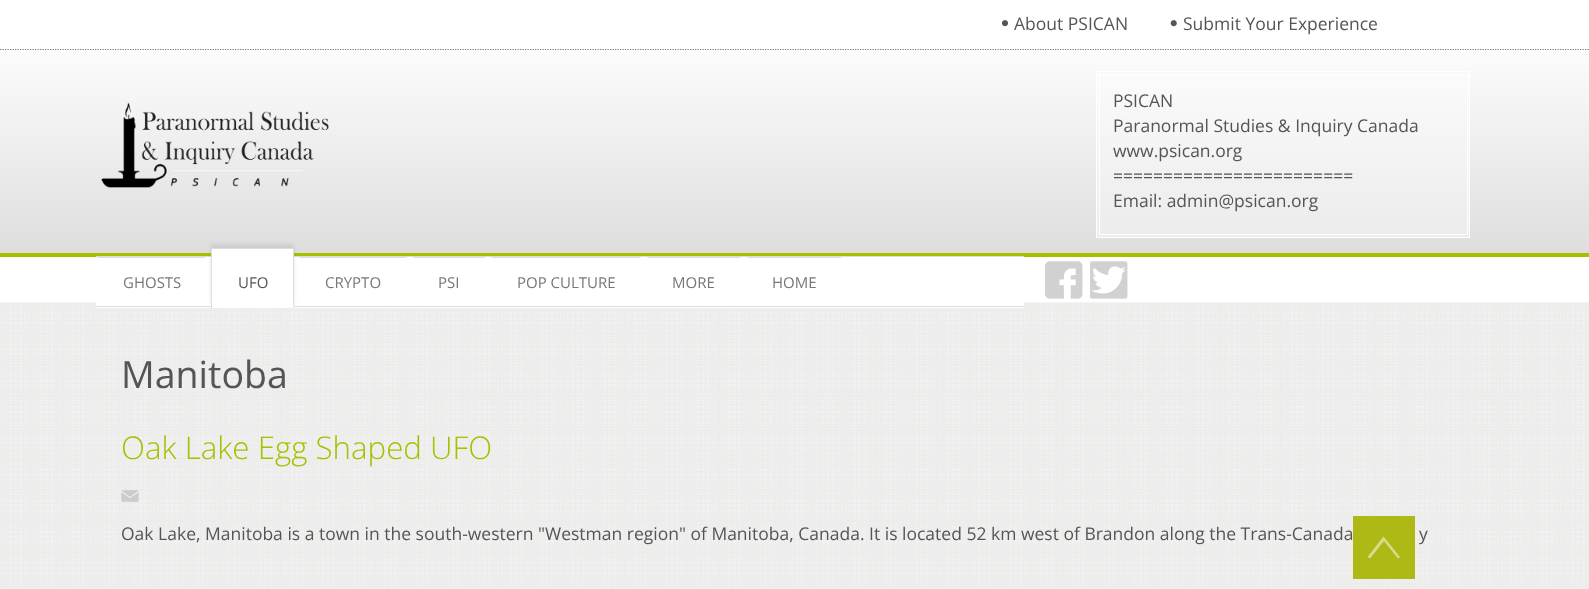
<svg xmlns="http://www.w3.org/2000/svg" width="1589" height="589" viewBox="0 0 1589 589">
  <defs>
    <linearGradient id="g1" gradientUnits="userSpaceOnUse" x1="795" y1="50" x2="795" y2="253"><stop offset="0" stop-color="rgb(252,252,252)"/><stop offset="1" stop-color="rgb(222,222,222)"/></linearGradient>
    <linearGradient id="g2" gradientUnits="userSpaceOnUse" x1="795" y1="50" x2="795" y2="253"><stop offset="0" stop-color="rgb(253,253,253)"/><stop offset="1" stop-color="rgb(234,234,234)"/></linearGradient>
  </defs>
  <rect width="100%" height="100%" fill="rgb(255,255,255)"/>
  <path d="M0 49.5H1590" fill="none" stroke="rgb(119,119,119)" stroke-width="1.2" stroke-dasharray="1.25 1.25"/>
  <image x="1001" y="20" width="8" height="7" href="pic1.png"/>
  <text x="1014" y="30" font-family="Open Sans" font-size="17.5" fill="rgb(85,85,85)">About PSICAN</text>
  <image x="1170" y="20" width="7" height="7" href="pic2.png"/>
  <text x="1183" y="30" font-family="Open Sans" font-size="17.5" fill="rgb(85,85,85)">Submit Your Experience</text>
  <rect x="0" y="50" width="1589" height="203" fill="url(#g1)"/>
  <rect x="1097" y="74" width="372" height="163" fill="url(#g2)"/>
  <image x="101" y="102" width="228" height="86" href="pic3.png"/>
  <rect x="1096.5" y="71.5" width="373" height="166" fill="none" stroke="rgb(255,255,255)"/>
  <rect x="1099.5" y="74.5" width="368" height="160" fill="none" stroke="rgb(255,255,255)"/>
  <g font-family="Open Sans" font-size="17.5" fill="rgb(85,85,85)">
    <text>
      <tspan x="1113" y="107">PSICAN</tspan>
      <tspan x="1113" y="132">Paranormal Studies &amp; Inquiry Canada</tspan>
      <tspan x="1113" y="157">www.psican.org</tspan>
      <tspan x="1113" y="182">========================</tspan>
      <tspan x="1113" y="207">Email: admin@psican.org</tspan>
    </text>
  </g>
  <rect x="0" y="253" width="1589" height="4" fill="rgb(168,191,0)"/>
  <image x="0" y="302" width="1589" height="287" href="pic6.png"/>
  <rect x="96" y="302" width="928" height="6" fill="rgb(255,255,255)"/>
  <rect x="96" y="256" width="928" height="1" fill="rgb(221,221,221)"/>
  <rect x="96" y="306" width="928" height="1" fill="rgb(221,221,221)"/>
  <path d="M96 256H206L205 258H98Z" fill="rgb(221,221,221)"/>
  <text x="123" y="288" font-family="Open Sans" font-size="15" fill="rgb(119,119,119)">GHOSTS</text>
  <rect x="211" y="244" width="83" height="60" fill="rgba(51,51,51,0.11)" filter="blur(2px)"/>
  <rect x="212" y="249" width="81" height="58" fill="rgb(255,255,255)"/>
  <rect x="211" y="248" width="83" height="1" fill="rgb(221,221,221)"/>
  <rect x="293" y="248" width="1" height="60" fill="rgb(221,221,221)"/>
  <rect x="211" y="306" width="83" height="1" fill="rgb(255,255,255)"/>
  <rect x="211" y="248" width="1" height="60" fill="rgb(221,221,221)"/>
  <text x="238" y="288" font-family="Open Sans" font-size="15" fill="rgb(85,85,85)">UFO</text>
  <path d="M299 256H408L406 258H300Z" fill="rgb(221,221,221)"/>
  <text x="325" y="288" font-family="Open Sans" font-size="15" fill="rgb(119,119,119)">CRYPTO</text>
  <path d="M412 256H486L485 258H414Z" fill="rgb(221,221,221)"/>
  <text x="438" y="288" font-family="Open Sans" font-size="15" fill="rgb(119,119,119)">PSI</text>
  <path d="M491 256H641L640 258H492Z" fill="rgb(221,221,221)"/>
  <text x="517" y="288" font-family="Open Sans" font-size="15" fill="rgb(119,119,119)">POP CULTURE</text>
  <path d="M646 256H741L740 258H648Z" fill="rgb(221,221,221)"/>
  <text x="672" y="288" font-family="Open Sans" font-size="15" fill="rgb(119,119,119)">MORE</text>
  <path d="M746 256H842L841 258H748Z" fill="rgb(221,221,221)"/>
  <text x="772" y="288" font-family="Open Sans" font-size="15" fill="rgb(119,119,119)">HOME</text>
  <image x="1045" y="261" width="38" height="38" href="pic4.png"/>
  <image x="1090" y="261" width="38" height="38" href="pic5.png"/>
  <text x="121" y="388" font-family="Open Sans" font-size="37.5" fill="rgb(85,85,85)">Manitoba</text>
  <text x="121" y="459" font-family="Open Sans" font-size="31.25" font-weight="300" fill="rgb(168,191,0)">Oak Lake Egg Shaped UFO</text>
  <image x="121" y="490" width="18" height="12" href="pic7.png"/>
  <g font-family="Open Sans" font-size="17.5" fill="rgb(85,85,85)">
    <text x="121" y="540">Oak Lake, Manitoba is a town in the south-western "Westman region" of Manitoba, Canada. It is located 52 km west of Brandon along the Trans-Canada</text>
    <text x="1419" y="540">y</text>
  </g>
  <rect x="1353" y="516" width="62" height="63" fill="rgba(167,179,0,0.91)"/>
  <path d="M1383.5 536.5L1400 557L1398 558.5L1384 541L1370 558.5L1367.5 557Z" fill="rgba(255,255,255,0.5)"/>
</svg>
